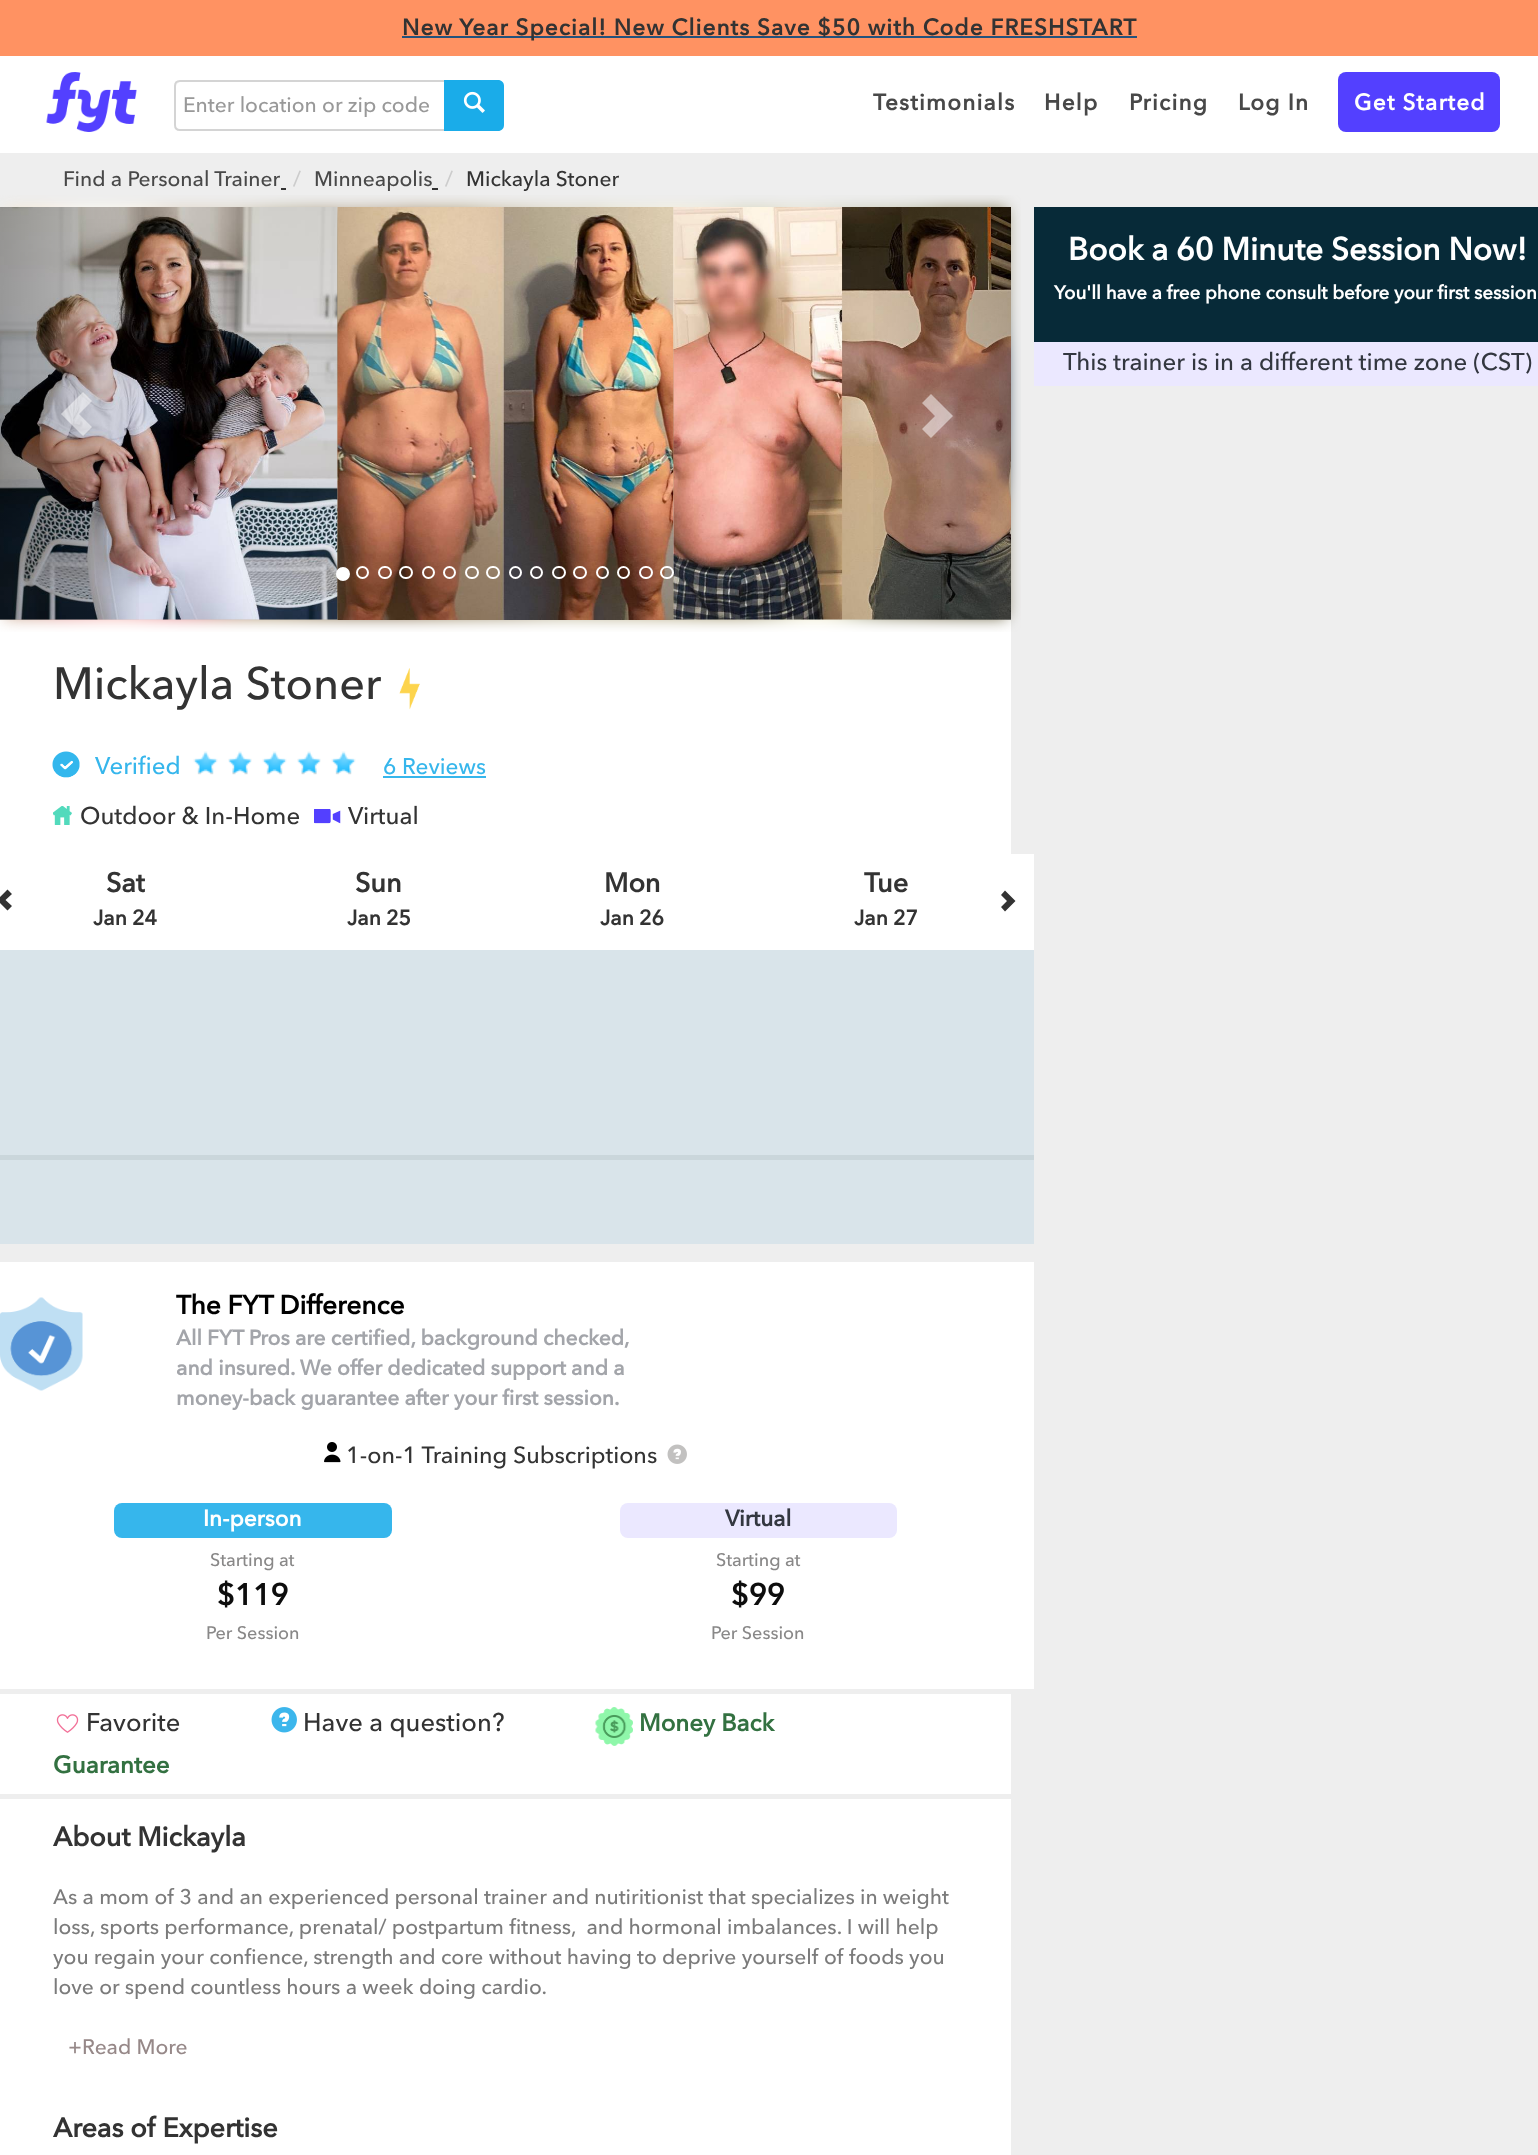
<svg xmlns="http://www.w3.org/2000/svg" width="1538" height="2155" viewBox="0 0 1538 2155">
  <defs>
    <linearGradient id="g1" gradientUnits="userSpaceOnUse" x1="0" y1="413" x2="152" y2="413"><stop offset="0" stop-color="rgb(0,0,0)" stop-opacity="0.25"/><stop offset="1" stop-color="rgb(0,0,0)" stop-opacity="0"/></linearGradient>
    <linearGradient id="g2" gradientUnits="userSpaceOnUse" x1="860" y1="413" x2="1011" y2="413"><stop offset="0" stop-color="rgb(0,0,0)" stop-opacity="0"/><stop offset="1" stop-color="rgb(0,0,0)" stop-opacity="0.25"/></linearGradient>
  </defs>
  <rect width="100%" height="100%" fill="rgb(255,255,255)"/>
  <rect x="0" y="0" width="1538" height="56" fill="rgb(255,146,98)"/>
  <rect x="402" y="36" width="735" height="2" fill="rgb(35,82,124)"/>
  <text x="402" y="35" font-family="Avenir Next" font-size="22.5" font-weight="bold" letter-spacing="1.12" fill="rgb(51,51,51)">New Year Special! New Clients Save $50 with Code FRESHSTART</text>
  <image x="46" y="72" width="91" height="60" href="pic1.png"/>
  <path d="M180 82H444V81H181C178 81 176 84 176 87C176 85 178 82 180 82Z" fill="rgb(236,236,236)"/>
  <path d="M180 81H445V130H180C177 130 175 128 175 125V86C175 83 177 81 180 81Z" fill="none" stroke="rgb(212,212,212)" stroke-width="2"/>
  <text x="183" y="112" font-family="Avenir Next" font-size="21" font-weight="500" fill="rgb(153,153,153)">Enter location or zip code</text>
  <path d="M444 80H498C501.5 80 504 82.5 504 86V125C504 128.5 501.5 131 498 131H444Z" fill="rgb(26,172,233)"/>
  <image x="463" y="91" width="22" height="22" href="pic2.png"/>
  <g font-family="Avenir Next" font-size="22.5" font-weight="bold" letter-spacing="1.25" fill="rgb(72,72,72)">
    <text x="873" y="110">Testimonials</text>
    <text x="1044" y="110">Help</text>
    <text x="1129" y="110">Pricing</text>
    <text x="1238" y="110">Log In</text>
  </g>
  <rect x="1338" y="72" width="162" height="60" rx="8" fill="rgb(83,64,255)"/>
  <text x="1354" y="110" font-family="Avenir Next" font-size="22.5" font-weight="bold" letter-spacing="1.25" fill="rgb(255,255,255)">Get Started</text>
  <rect x="0" y="153" width="1538" height="2002" fill="rgb(238,238,238)"/>
  <text x="63" y="186" font-family="Avenir Next" font-size="21" font-weight="500" fill="rgb(72,72,72)">Find a Personal Trainer</text>
  <rect x="281" y="188" width="5" height="2" fill="rgb(51,51,51)"/>
  <text x="293" y="186" font-family="Avenir Next" font-size="21" font-weight="500" fill="rgb(204,204,204)">/</text>
  <text x="314" y="186" font-family="Avenir Next" font-size="21" font-weight="500" fill="rgb(72,72,72)">Minneapolis</text>
  <rect x="432" y="188" width="6" height="2" fill="rgb(51,51,51)"/>
  <text x="445" y="186" font-family="Avenir Next" font-size="21" font-weight="500" fill="rgb(204,204,204)">/</text>
  <text x="466" y="186" font-family="Avenir Next" font-size="21" font-weight="500" fill="rgb(51,51,51)">Mickayla Stoner</text>
  <rect x="1034" y="207" width="504" height="135" fill="rgb(7,42,56)"/>
  <text x="1068" y="260" font-family="Avenir Next" font-size="31.5" font-weight="bold" fill="rgb(255,255,255)">Book a 60 Minute Session Now!</text>
  <text x="1054" y="299" font-family="Avenir Next" font-size="18.75" font-weight="bold" fill="rgb(255,255,255)">You'll have a free phone consult before your first session</text>
  <rect x="1034" y="342" width="504" height="44" fill="rgb(235,232,255)"/>
  <text x="1063" y="370" font-family="Avenir Next" font-size="24" font-weight="500" fill="rgb(51,55,64)">This trainer is in a different time zone (CST)</text>
  <rect x="0" y="620" width="1011" height="234" fill="rgb(255,255,255)"/>
  <image x="0" y="195" width="1021" height="437" href="pic3.png"/>
  <image x="0" y="207" width="338" height="413" href="pic4.png"/>
  <image x="337" y="207" width="337" height="413" href="pic5.png"/>
  <image x="673" y="207" width="338" height="413" href="pic6.png"/>
  <rect x="0" y="207" width="139" height="413" fill="url(#g1)"/>
  <path d="M61 414L83 436L92 427L79 414L92 401L83 392Z" fill="rgba(255,255,255,0.5)"/>
  <circle cx="343" cy="574" r="6" fill="rgb(255,255,255)" stroke="rgb(255,255,255)" stroke-width="2"/>
  <circle cx="362.5" cy="572.5" r="5.5" fill="none" stroke="rgb(255,255,255)" stroke-width="2"/>
  <rect x="379" y="567" width="12" height="11" rx="5.5" fill="none" stroke="rgb(255,255,255)" stroke-width="2"/>
  <rect x="400" y="567" width="12" height="11" rx="5.5" fill="none" stroke="rgb(255,255,255)" stroke-width="2"/>
  <circle cx="428.5" cy="572.5" r="5.5" fill="none" stroke="rgb(255,255,255)" stroke-width="2"/>
  <circle cx="449.5" cy="572.5" r="5.5" fill="none" stroke="rgb(255,255,255)" stroke-width="2"/>
  <rect x="466" y="567" width="12" height="11" rx="5.5" fill="none" stroke="rgb(255,255,255)" stroke-width="2"/>
  <rect x="487" y="567" width="12" height="11" rx="5.5" fill="none" stroke="rgb(255,255,255)" stroke-width="2"/>
  <circle cx="515.5" cy="572.5" r="5.5" fill="none" stroke="rgb(255,255,255)" stroke-width="2"/>
  <circle cx="536.5" cy="572.5" r="5.5" fill="none" stroke="rgb(255,255,255)" stroke-width="2"/>
  <rect x="553" y="567" width="12" height="11" rx="5.5" fill="none" stroke="rgb(255,255,255)" stroke-width="2"/>
  <rect x="574" y="567" width="12" height="11" rx="5.5" fill="none" stroke="rgb(255,255,255)" stroke-width="2"/>
  <circle cx="602.5" cy="572.5" r="5.5" fill="none" stroke="rgb(255,255,255)" stroke-width="2"/>
  <circle cx="623.5" cy="572.5" r="5.5" fill="none" stroke="rgb(255,255,255)" stroke-width="2"/>
  <rect x="640" y="567" width="12" height="11" rx="5.5" fill="none" stroke="rgb(255,255,255)" stroke-width="2"/>
  <rect x="661" y="567" width="12" height="11" rx="5.5" fill="none" stroke="rgb(255,255,255)" stroke-width="2"/>
  <rect x="873" y="207" width="138" height="413" fill="url(#g2)"/>
  <path d="M922 429L935 416L922 403L931 394L953 416L931 438Z" fill="rgba(255,255,255,0.5)"/>
  <text x="53" y="699" font-family="Avenir Next" font-size="45" font-weight="500" fill="rgb(51,51,51)">Mickayla Stoner</text>
  <image x="399" y="668" width="21" height="42" href="pic7.png"/>
  <image x="52" y="751" width="28" height="27" href="pic8.png"/>
  <text x="95" y="774" font-family="Avenir Next" font-size="24" font-weight="500" fill="rgb(54,182,236)">Verified</text>
  <image x="193" y="751" width="25" height="24" href="pic9.png"/>
  <image x="228" y="751" width="24" height="24" href="pic10.png"/>
  <image x="262" y="751" width="25" height="24" href="pic11.png"/>
  <image x="297" y="751" width="24" height="24" href="pic12.png"/>
  <image x="331" y="751" width="25" height="24" href="pic9.png"/>
  <text x="383" y="774" font-family="Avenir Next" font-size="22.5" font-weight="500" fill="rgb(54,182,236)">6 Reviews</text>
  <rect x="383" y="776" width="103" height="2" fill="rgb(54,182,236)"/>
  <image x="53" y="806" width="19" height="19" href="pic13.png"/>
  <text x="80" y="824" font-family="Avenir Next" font-size="24" font-weight="500" fill="rgb(51,51,51)">Outdoor &amp; In-Home</text>
  <image x="314" y="809" width="27" height="15" href="pic14.png"/>
  <text x="348" y="824" font-family="Avenir Next" font-size="24" font-weight="500" fill="rgb(51,51,51)">Virtual</text>
  <rect x="0" y="854" width="1034" height="835" fill="rgb(255,255,255)"/>
  <rect x="0" y="950" width="1034" height="294" fill="rgb(217,228,234)"/>
  <path d="M-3 900L7.5 910.5L12 906L5.5 900L12 894L7.5 889.5Z" fill="rgb(51,51,51)"/>
  <text x="106" y="892" font-family="Avenir Next" font-size="27" font-weight="bold" fill="rgb(51,51,51)">Sat</text>
  <text x="93" y="925" font-family="Avenir Next" font-size="21" font-weight="bold" fill="rgb(51,51,51)">Jan 24</text>
  <text x="355" y="892" font-family="Avenir Next" font-size="27" font-weight="bold" fill="rgb(51,51,51)">Sun</text>
  <text x="347" y="925" font-family="Avenir Next" font-size="21" font-weight="bold" fill="rgb(51,51,51)">Jan 25</text>
  <text x="604" y="892" font-family="Avenir Next" font-size="27" font-weight="bold" fill="rgb(51,51,51)">Mon</text>
  <text x="600" y="925" font-family="Avenir Next" font-size="21" font-weight="bold" fill="rgb(51,51,51)">Jan 26</text>
  <text x="864" y="892" font-family="Avenir Next" font-size="27" font-weight="bold" fill="rgb(51,51,51)">Tue</text>
  <text x="854" y="925" font-family="Avenir Next" font-size="21" font-weight="bold" fill="rgb(51,51,51)">Jan 27</text>
  <path d="M1001 907L1007 901L1001 895L1005 890.5L1015.5 901L1005 911.5Z" fill="rgb(51,51,51)"/>
  <rect x="0" y="1244" width="1034" height="18" fill="rgb(238,238,238)"/>
  <image x="0" y="1297" width="83" height="94" href="pic15.png"/>
  <text x="176" y="1314" font-family="Avenir Next" font-size="26.25" font-weight="bold" fill="rgb(0,0,0)">The FYT Difference</text>
  <g font-family="Avenir Next" font-size="21" font-weight="bold" fill="rgb(163,165,170)">
    <text>
      <tspan x="176" y="1345">All FYT Pros are certified, background checked,</tspan>
      <tspan x="176" y="1375">and insured. We offer dedicated support and a</tspan>
      <tspan x="176" y="1405">money-back guarantee after your first session.</tspan>
    </text>
  </g>
  <rect x="0" y="1155" width="1034" height="5" fill="rgb(202,214,219)"/>
  <image x="324" y="1442" width="17" height="21" href="pic16.png"/>
  <text x="346" y="1463" font-family="Avenir Next" font-size="23.25" font-weight="500" fill="rgb(51,51,51)">1-on-1 Training Subscriptions</text>
  <image x="667" y="1444" width="20" height="20" href="pic17.png"/>
  <rect x="114" y="1503" width="278" height="35" rx="8" fill="rgb(54,182,236)"/>
  <text x="203" y="1526" font-family="Avenir Next" font-size="22.5" font-weight="bold" fill="rgb(255,255,255)">In-person</text>
  <text x="210" y="1566" font-family="Avenir Next" font-size="18" font-weight="500" fill="rgb(137,136,136)">Starting at</text>
  <text x="217" y="1605" font-family="Avenir Next" font-size="30" font-weight="bold" fill="rgb(13,13,13)">$119</text>
  <text x="206" y="1639" font-family="Avenir Next" font-size="18" font-weight="500" fill="rgb(137,136,136)">Per Session</text>
  <rect x="620" y="1503" width="277" height="35" rx="8" fill="rgb(235,232,255)"/>
  <text x="725" y="1526" font-family="Avenir Next" font-size="22.5" font-weight="bold" fill="rgb(51,55,64)">Virtual</text>
  <text x="716" y="1566" font-family="Avenir Next" font-size="18" font-weight="500" fill="rgb(137,136,136)">Starting at</text>
  <text x="731" y="1605" font-family="Avenir Next" font-size="30" font-weight="bold" fill="rgb(13,13,13)">$99</text>
  <text x="711" y="1639" font-family="Avenir Next" font-size="18" font-weight="500" fill="rgb(137,136,136)">Per Session</text>
  <rect x="0" y="1694" width="1011" height="100" fill="rgb(255,255,255)"/>
  <image x="56" y="1714" width="23" height="19" href="pic18.png"/>
  <text x="86" y="1731" font-family="Avenir Next" font-size="25.5" font-weight="500" fill="rgb(51,51,51)">Favorite</text>
  <image x="271" y="1707" width="26" height="26" href="pic19.png"/>
  <text x="303" y="1731" font-family="Avenir Next" font-size="25.5" font-weight="500" fill="rgb(51,51,51)">Have a question?</text>
  <image x="595" y="1707" width="38" height="39" href="pic20.png"/>
  <g font-family="Avenir Next" font-size="24" font-weight="bold" fill="rgb(51,113,65)">
    <text x="639" y="1731">Money Back</text>
    <text x="53" y="1773">Guarantee</text>
  </g>
  <rect x="0" y="1799" width="1011" height="356" fill="rgb(255,255,255)"/>
  <text x="53" y="1846" font-family="Avenir Next" font-size="27" font-weight="bold" fill="rgb(51,51,51)">About Mickayla</text>
  <g font-family="Avenir Next" font-size="21" font-weight="500" fill="rgb(123,123,123)">
    <text xml:space="preserve"><tspan x="53" y="1904">As a mom of 3 and an experienced personal trainer and nutiritionist that specializes in weight</tspan><tspan x="53" y="1934">loss, sports performance, prenatal/ postpartum fitness,  and hormonal imbalances. I will help</tspan><tspan x="53" y="1964">you regain your confience, strength and core without having to deprive yourself of foods you</tspan><tspan x="53" y="1994">love or spend countless hours a week doing cardio.</tspan></text>
  </g>
  <text x="68" y="2054" font-family="Avenir Next" font-size="21" font-weight="500" fill="rgb(150,136,136)">+Read More</text>
  <text x="53" y="2137" font-family="Avenir Next" font-size="27" font-weight="bold" fill="rgb(51,51,51)">Areas of Expertise</text>
</svg>
